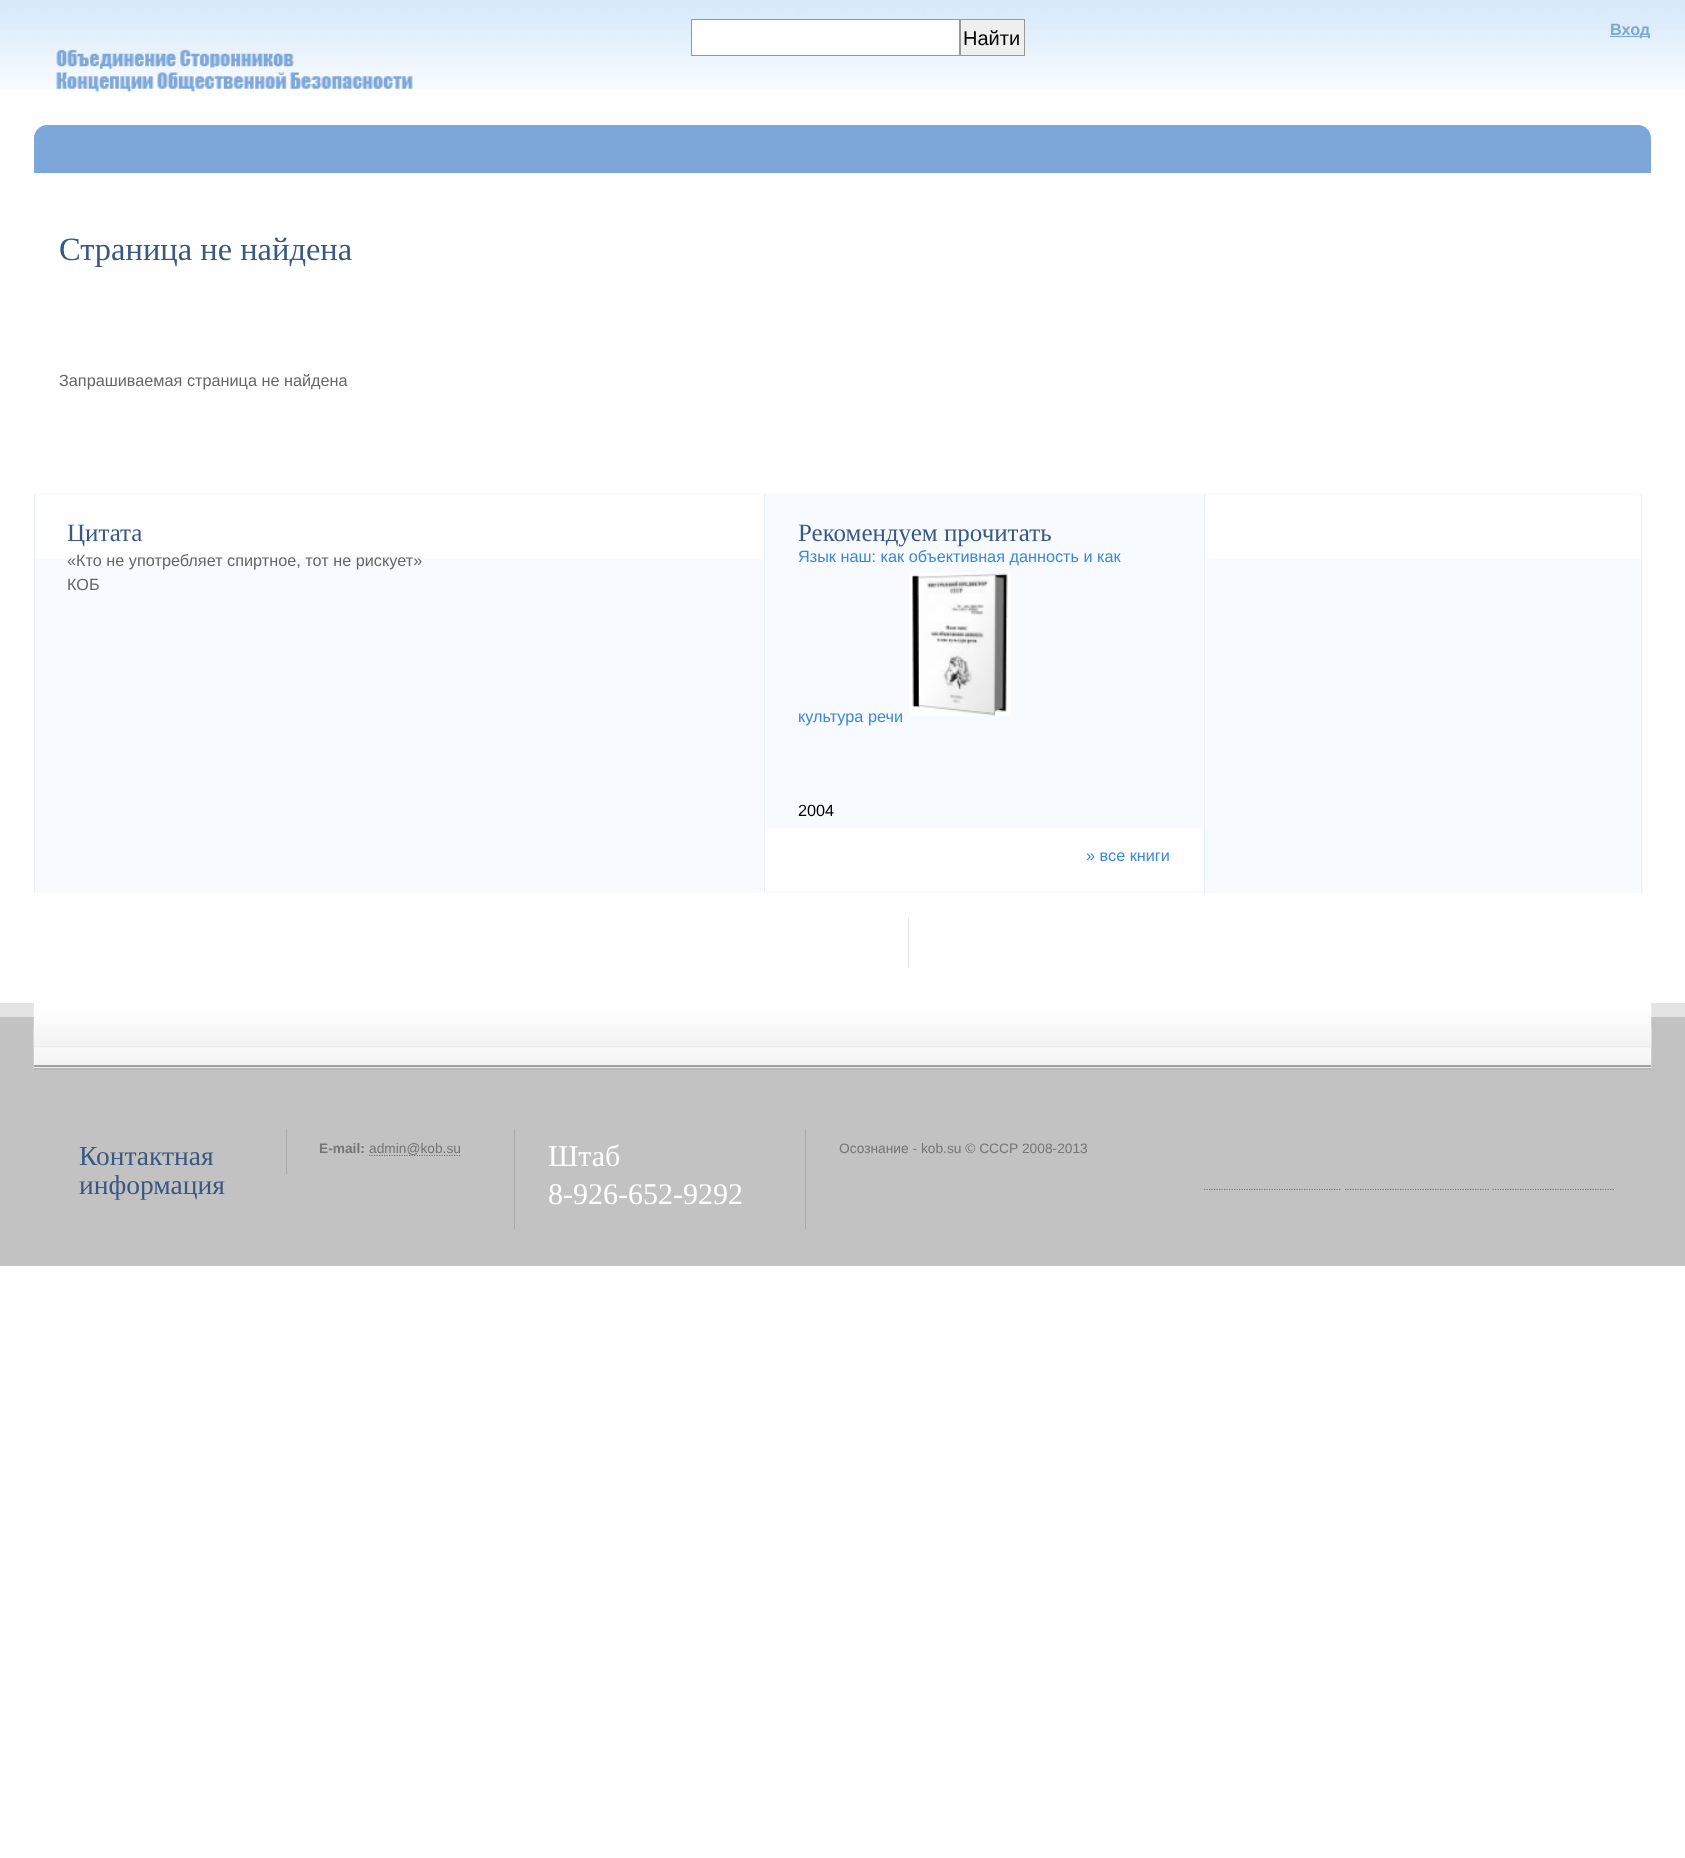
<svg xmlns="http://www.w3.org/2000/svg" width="1685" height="1858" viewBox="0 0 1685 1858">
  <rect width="100%" height="100%" fill="rgb(255,255,255)"/>
  <image x="0" y="0" width="1685" height="90" href="pic1.png"/>
  <rect x="691.5" y="19.5" width="268" height="36" fill="rgb(255,255,255)" stroke="rgb(153,153,153)"/>
  <rect x="960.5" y="19.5" width="64" height="36" fill="rgb(239,239,239)" stroke="rgb(153,153,153)"/>
  <text x="963" y="45" font-family="Liberation Sans" font-size="20" fill="rgb(0,0,0)">Найти</text>
  <rect x="1610" y="36" width="40" height="1" fill="rgb(125,167,217)"/>
  <text x="1610" y="35" font-family="Liberation Sans" font-size="16.25" font-weight="bold" fill="rgb(125,167,217)">Вход</text>
  <image x="56" y="49" width="358" height="43" href="pic2.png"/>
  <path d="M47 125H1638C1645 125 1651 131 1651 138V174H34V138C34 131 40 125 47 125Z" fill="rgb(125,167,217)"/>
  <rect x="34" y="173" width="1617" height="1" fill="rgb(255,255,255)"/>
  <text x="59" y="260" font-family="Liberation Serif" font-size="32.5" fill="rgb(57,89,132)">Страница не найдена</text>
  <text x="59" y="386" font-family="Liberation Sans" font-size="16.25" fill="rgb(102,102,102)">Запрашиваемая страница не найдена</text>
  <rect x="35" y="494" width="728" height="399" fill="rgb(247,251,255)"/>
  <rect x="35" y="495" width="728" height="64" fill="rgb(254,254,255)"/>
  <rect x="34" y="891" width="730" height="1" fill="rgb(247,251,255)"/>
  <rect x="34" y="494" width="1" height="399" fill="rgb(231,239,255)"/>
  <text x="67" y="541" font-family="Liberation Serif" font-size="25" fill="rgb(57,89,132)">Цитата</text>
  <g font-family="Liberation Sans" font-size="16.25" fill="rgb(102,102,102)">
    <text>
      <tspan x="67" y="566">«Кто не употребляет спиртное, тот не рискует»</tspan>
      <tspan x="67" y="590">КОБ</tspan>
    </text>
  </g>
  <rect x="765" y="494" width="438" height="399" fill="rgb(247,251,255)"/>
  <rect x="765" y="828" width="438" height="63" fill="rgb(254,254,255)"/>
  <rect x="764" y="891" width="440" height="1" fill="rgb(247,251,255)"/>
  <rect x="764" y="494" width="1" height="399" fill="rgb(231,239,255)"/>
  <text x="798" y="541" font-family="Liberation Serif" font-size="25" fill="rgb(57,89,132)">Рекомендуем прочитать</text>
  <text x="798" y="562" font-family="Liberation Sans" font-size="16.25" fill="rgb(61,135,217)">Язык наш: как объективная данность и как</text>
  <image x="909" y="572" width="102" height="145" href="pic3.png"/>
  <text x="798" y="722" font-family="Liberation Sans" font-size="16.25" fill="rgb(61,135,217)">культура речи</text>
  <text x="798" y="816" font-family="Liberation Sans" font-size="16.25" fill="rgb(0,0,0)">2004</text>
  <text x="1086" y="861" font-family="Liberation Sans" font-size="16.25" fill="rgb(61,135,217)">» все книги</text>
  <rect x="1205" y="494" width="438" height="399" fill="rgb(247,251,255)"/>
  <rect x="1205" y="495" width="438" height="64" fill="rgb(254,254,255)"/>
  <rect x="1641" y="494" width="1" height="399" fill="rgb(242,239,237)"/>
  <rect x="1204" y="891" width="439" height="1" fill="rgb(247,251,255)"/>
  <rect x="1204" y="494" width="1" height="399" fill="rgb(231,239,255)"/>
  <rect x="0" y="1003" width="1685" height="14" fill="rgb(228,228,228)"/>
  <rect x="34" y="1003" width="1617" height="1" fill="rgb(255,255,255)"/>
  <rect x="908" y="918" width="1" height="50" fill="rgb(228,228,228)"/>
  <rect x="0" y="1017" width="1685" height="249" fill="rgb(194,194,194)"/>
  <image x="33" y="1027" width="1619" height="42" href="pic4.png"/>
  <rect x="34" y="1069" width="1617" height="1" fill="rgb(187,187,187)"/>
  <rect x="34" y="1004" width="1617" height="44" fill="rgb(255,255,255)"/>
  <image x="33" y="1006" width="1619" height="42" href="pic5.png"/>
  <rect x="34" y="1068" width="1617" height="1" fill="rgb(180,180,180)"/>
  <rect x="34" y="1066" width="1617" height="1" fill="rgb(155,155,155)"/>
  <rect x="34" y="1065" width="1617" height="1" fill="rgb(163,163,163)"/>
  <g font-family="Liberation Serif" font-size="27.5" fill="rgb(57,89,132)">
    <text>
      <tspan x="79" y="1165">Контактная</tspan>
      <tspan x="79" y="1194">информация</tspan>
    </text>
  </g>
  <rect x="286" y="1129" width="1" height="45" fill="rgb(169,169,169)"/>
  <text x="319" y="1153" font-family="Liberation Sans" font-size="13.75" font-weight="bold" fill="rgb(117,117,117)">E-mail:</text>
  <path d="M369 1155.5H461" fill="none" stroke="rgb(117,117,117)" stroke-width="1.2" stroke-dasharray="1.25 1.25"/>
  <text x="369" y="1153" font-family="Liberation Sans" font-size="13.75" fill="rgb(117,117,117)">admin@kob.su</text>
  <rect x="805" y="1129" width="1" height="100" fill="rgb(169,169,169)"/>
  <rect x="514" y="1129" width="1" height="100" fill="rgb(169,169,169)"/>
  <g font-family="Liberation Serif" font-size="30" fill="rgb(255,255,255)">
    <text>
      <tspan x="548" y="1166">Штаб</tspan>
      <tspan x="548" y="1204">8-926-652-9292</tspan>
    </text>
  </g>
  <text x="839" y="1153" font-family="Liberation Sans" font-size="13.75" fill="rgb(117,117,117)">Осознание - kob.su © СССР 2008-2013</text>
  <path d="M1204 1189.5H1341" fill="none" stroke="rgb(117,117,117)" stroke-width="1.2" stroke-dasharray="1.25 1.25"/>
  <path d="M1345 1189.5H1489" fill="none" stroke="rgb(117,117,117)" stroke-width="1.2" stroke-dasharray="1.25 1.25"/>
  <path d="M1492.5 1189.5H1615" fill="none" stroke="rgb(117,117,117)" stroke-width="1.2" stroke-dasharray="1.25 1.25"/>
</svg>
